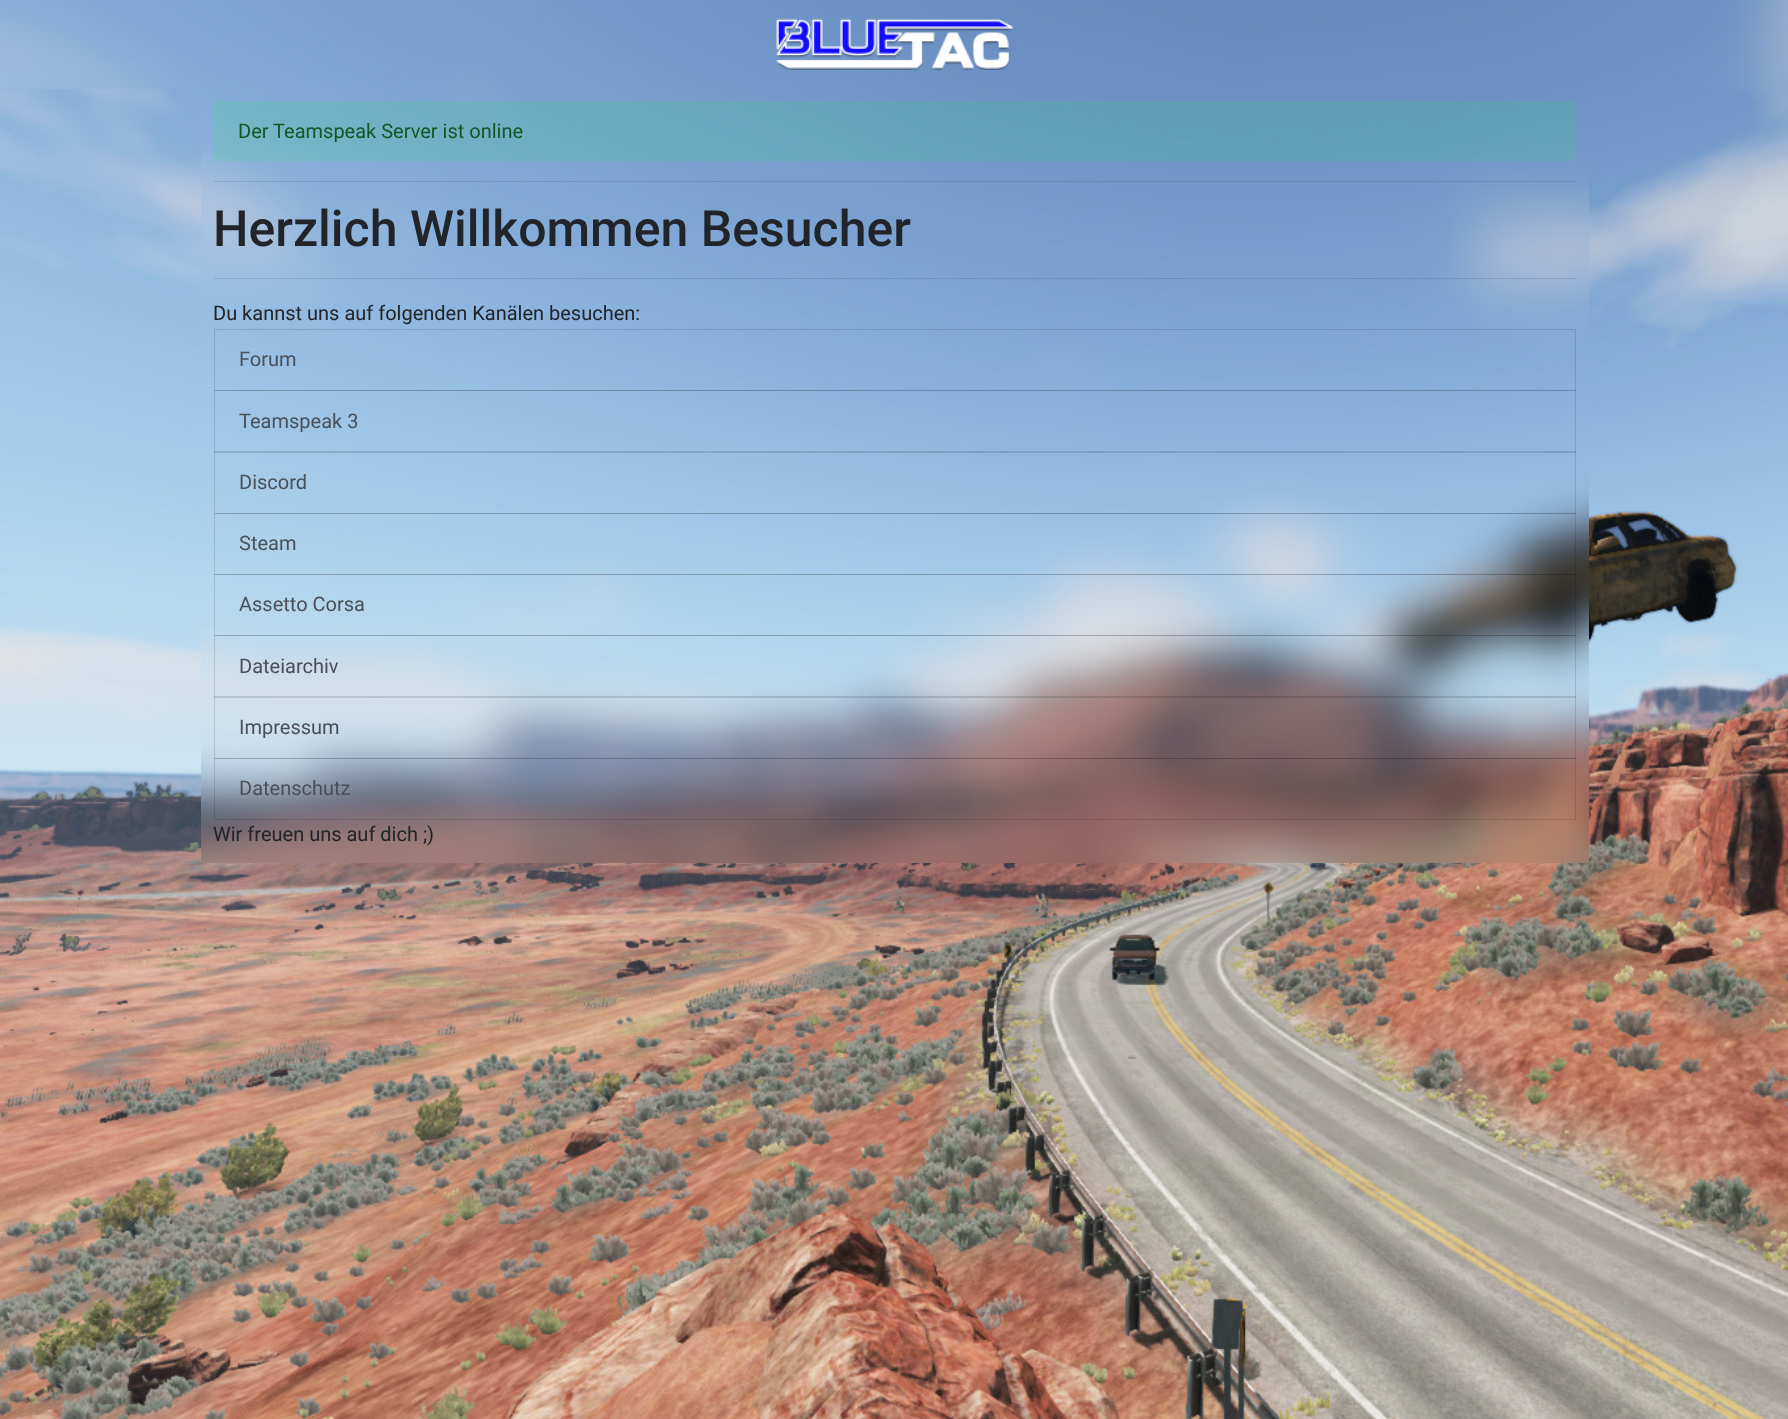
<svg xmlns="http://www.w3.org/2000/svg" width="1788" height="1419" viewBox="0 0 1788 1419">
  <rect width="100%" height="100%" fill="rgb(255,255,255)"/>
  <image x="0" y="0" width="1788" height="89" href="pic1.png"/>
  <image x="776" y="18" width="238" height="52" href="pic2.png"/>
  <image x="0" y="89" width="1788" height="1330" href="pic3.png"/>
  <image x="201" y="89" width="1388" height="774" href="pic4.png"/>
  <rect x="214" y="101" width="1362" height="60" fill="rgba(0,255,61,0.11)"/>
  <text x="238" y="138" font-family="Roboto" font-size="20" fill="rgb(21,87,36)">Der Teamspeak Server ist online</text>
  <rect x="214" y="181" width="1362" height="1" fill="rgba(0,0,0,0.1)"/>
  <text x="213" y="246" font-family="Roboto" font-size="50" font-weight="500" fill="rgb(33,37,41)">Herzlich Willkommen Besucher</text>
  <rect x="214" y="278" width="1362" height="1" fill="rgba(0,0,0,0.1)"/>
  <text x="213" y="320" font-family="Roboto" font-size="20" fill="rgb(33,37,41)">Du kannst uns auf folgenden Kanälen besuchen:</text>
  <rect x="214.5" y="329.5" width="1361" height="61" fill="none" stroke="rgba(0,0,0,0.12)"/>
  <text x="239" y="366" font-family="Roboto" font-size="20" fill="rgb(73,80,87)">Forum</text>
  <rect x="214.5" y="390.5" width="1361" height="62" fill="none" stroke="rgba(0,0,0,0.12)"/>
  <text x="239" y="428" font-family="Roboto" font-size="20" fill="rgb(73,80,87)">Teamspeak 3</text>
  <rect x="214.5" y="451.5" width="1361" height="62" fill="none" stroke="rgba(0,0,0,0.12)"/>
  <text x="239" y="489" font-family="Roboto" font-size="20" fill="rgb(73,80,87)">Discord</text>
  <rect x="214.5" y="513.5" width="1361" height="61" fill="none" stroke="rgba(0,0,0,0.12)"/>
  <text x="239" y="550" font-family="Roboto" font-size="20" fill="rgb(73,80,87)">Steam</text>
  <rect x="214.5" y="574.5" width="1361" height="61" fill="none" stroke="rgba(0,0,0,0.12)"/>
  <text x="239" y="611" font-family="Roboto" font-size="20" fill="rgb(73,80,87)">Assetto Corsa</text>
  <rect x="214.5" y="635.5" width="1361" height="62" fill="none" stroke="rgba(0,0,0,0.12)"/>
  <text x="239" y="673" font-family="Roboto" font-size="20" fill="rgb(73,80,87)">Dateiarchiv</text>
  <rect x="214.5" y="696.5" width="1361" height="62" fill="none" stroke="rgba(0,0,0,0.12)"/>
  <text x="239" y="734" font-family="Roboto" font-size="20" fill="rgb(73,80,87)">Impressum</text>
  <rect x="214.5" y="758.5" width="1361" height="61" fill="none" stroke="rgba(0,0,0,0.12)"/>
  <text x="239" y="795" font-family="Roboto" font-size="20" fill="rgb(73,80,87)">Datenschutz</text>
  <text x="213" y="841" font-family="Roboto" font-size="20" fill="rgb(33,37,41)">Wir freuen uns auf dich ;)</text>
</svg>
